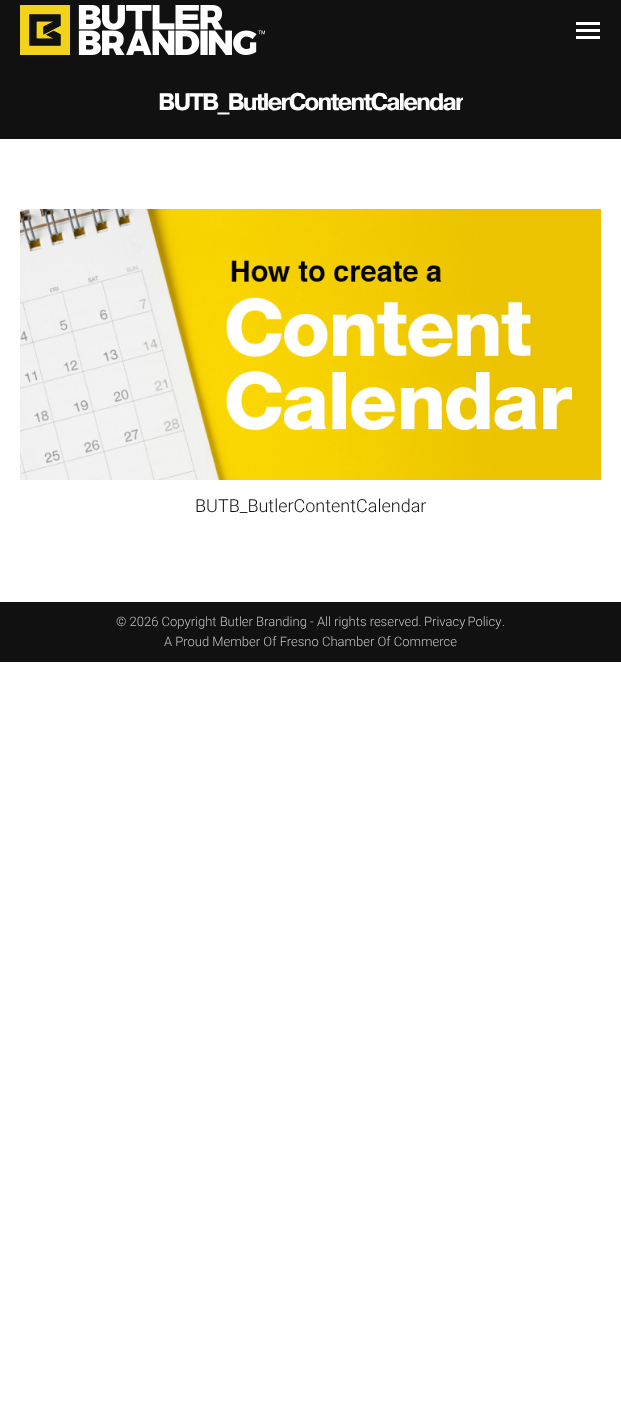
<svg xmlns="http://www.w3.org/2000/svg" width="621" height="1412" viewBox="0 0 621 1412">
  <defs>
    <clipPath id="clip1"><rect x="158" y="85" width="305" height="34"/></clipPath>
  </defs>
  <rect width="100%" height="100%" fill="rgb(255,255,255)"/>
  <rect x="0" y="0" width="621" height="139" fill="rgb(17,17,17)"/>
  <image x="20" y="5" width="245" height="50" href="pic1.png"/>
  <rect x="576" y="22" width="24" height="3" fill="rgb(255,255,255)"/>
  <rect x="576" y="29" width="24" height="3" fill="rgb(255,255,255)"/>
  <rect x="576" y="36" width="24" height="3" fill="rgb(255,255,255)"/>
  <g clip-path="url(#clip1)">
    <text x="158" y="110" font-family="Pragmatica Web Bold" font-size="24" font-weight="bold" letter-spacing="-2" fill="rgb(255,255,255)">BUTB_ButlerContentCalendar</text>
  </g>
  <image x="20" y="209" width="581" height="271" href="pic2.png"/>
  <text x="195" y="512" font-family="Roboto" font-size="18" font-weight="300" fill="rgb(17,17,17)">BUTB_ButlerContentCalendar</text>
  <rect x="0" y="602" width="621" height="60" fill="rgb(17,17,17)"/>
  <g font-family="Roboto" font-size="13" font-weight="300" fill="rgb(194,194,194)">
    <text x="116" y="626">© 2026 Copyright Butler Branding - All rights reserved.</text>
    <text x="424" y="626" word-spacing="-1">Privacy Policy</text>
    <text x="502" y="626">.</text>
    <text x="164" y="646">A Proud Member Of Fresno Chamber Of Commerce</text>
  </g>
</svg>
